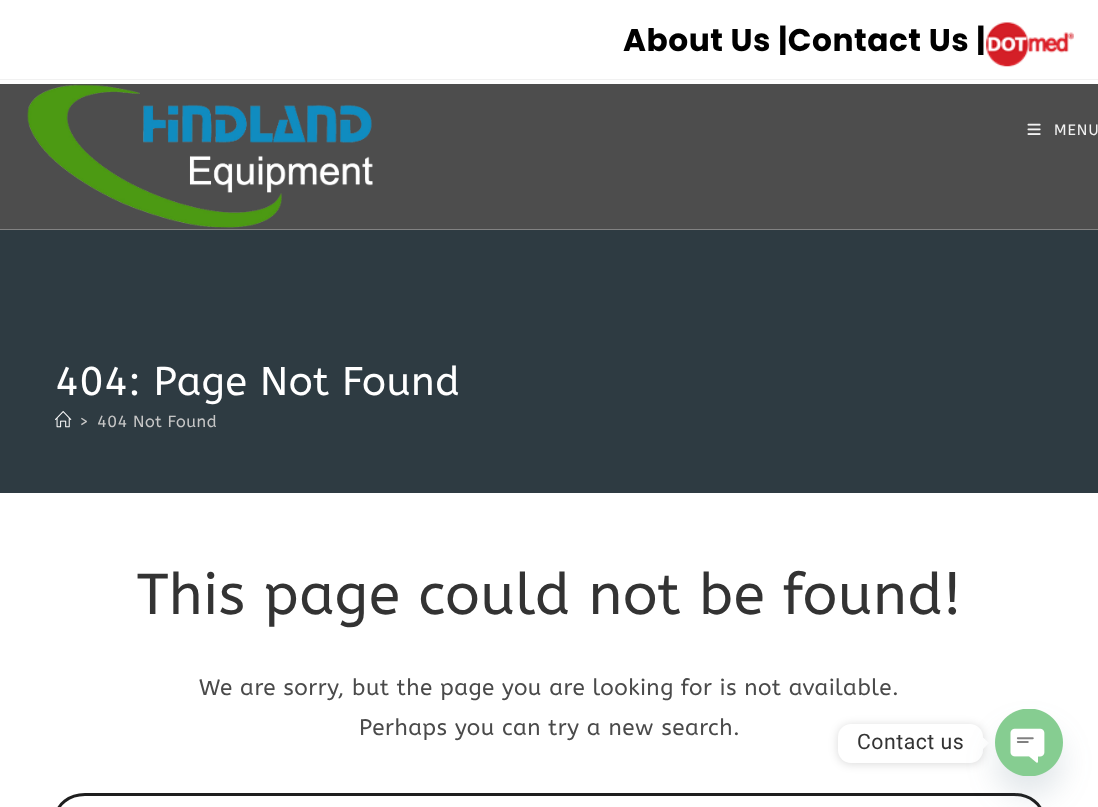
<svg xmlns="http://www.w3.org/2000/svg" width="1098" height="807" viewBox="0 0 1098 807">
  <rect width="100%" height="100%" fill="rgb(255,255,255)"/>
  <rect x="0" y="79" width="1098" height="1" fill="rgb(241,241,241)"/>
  <text x="623" y="51" font-family="Poppins" font-size="31.25" font-weight="bold" letter-spacing="0.5" fill="rgb(0,0,0)">About Us |Contact Us |</text>
  <image x="986" y="22" width="88" height="45" href="pic1.png"/>
  <rect x="0" y="84" width="1098" height="145" fill="rgb(77,77,77)"/>
  <rect x="0" y="229" width="1098" height="1" fill="rgb(130,130,130)"/>
  <image x="27" y="84" width="346" height="144" href="pic2.png"/>
  <image x="1027" y="123" width="14" height="12" href="pic3.png"/>
  <text x="1054" y="135" font-family="ABeeZee" font-size="15" letter-spacing="1" fill="rgb(242,242,242)">MENU</text>
  <rect x="0" y="230" width="1098" height="263" fill="rgb(46,59,66)"/>
  <text x="55" y="395" font-family="ABeeZee" font-size="40" letter-spacing="0.5" fill="rgb(255,255,255)">404: Page Not Found</text>
  <image x="55" y="411" width="17" height="17" href="pic4.png"/>
  <g font-family="ABeeZee" font-size="16.25" letter-spacing="0.5" fill="rgb(198,198,198)">
    <text x="79" y="427">&gt;</text>
    <text x="97" y="427">404 Not Found</text>
  </g>
  <text x="137" y="614" font-family="ABeeZee" font-size="57.5" letter-spacing="0.5" fill="rgb(51,51,51)">This page could not be found!</text>
  <g font-family="ABeeZee" font-size="22.5" letter-spacing="0.5" fill="rgb(74,74,74)">
    <text x="199" y="695">We are sorry, but the page you are looking for is not available.</text>
    <text x="359" y="735">Perhaps you can try a new search.</text>
  </g>
  <rect x="56.5" y="794.5" width="986" height="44" rx="28.5" fill="none" stroke="rgb(30,30,30)" stroke-width="3"/>
  <rect x="838" y="725" width="145" height="39" rx="13" fill="rgba(0,0,0,0.15)" filter="blur(5px)"/>
  <rect x="838" y="724" width="145" height="39" rx="13" fill="rgb(255,255,255)"/>
  <text x="857" y="749" font-family="Roboto" font-size="21.25" letter-spacing="0.5" fill="rgb(51,51,51)">Contact us</text>
  <path d="M982.5 749.5V737L989 743Z" fill="rgb(255,255,255)"/>
  <rect x="995" y="729" width="68" height="67" rx="33.5" fill="rgba(73,104,126,0.16)" filter="blur(15px)"/>
  <image x="995" y="709" width="68" height="67" href="pic5.png"/>
</svg>
